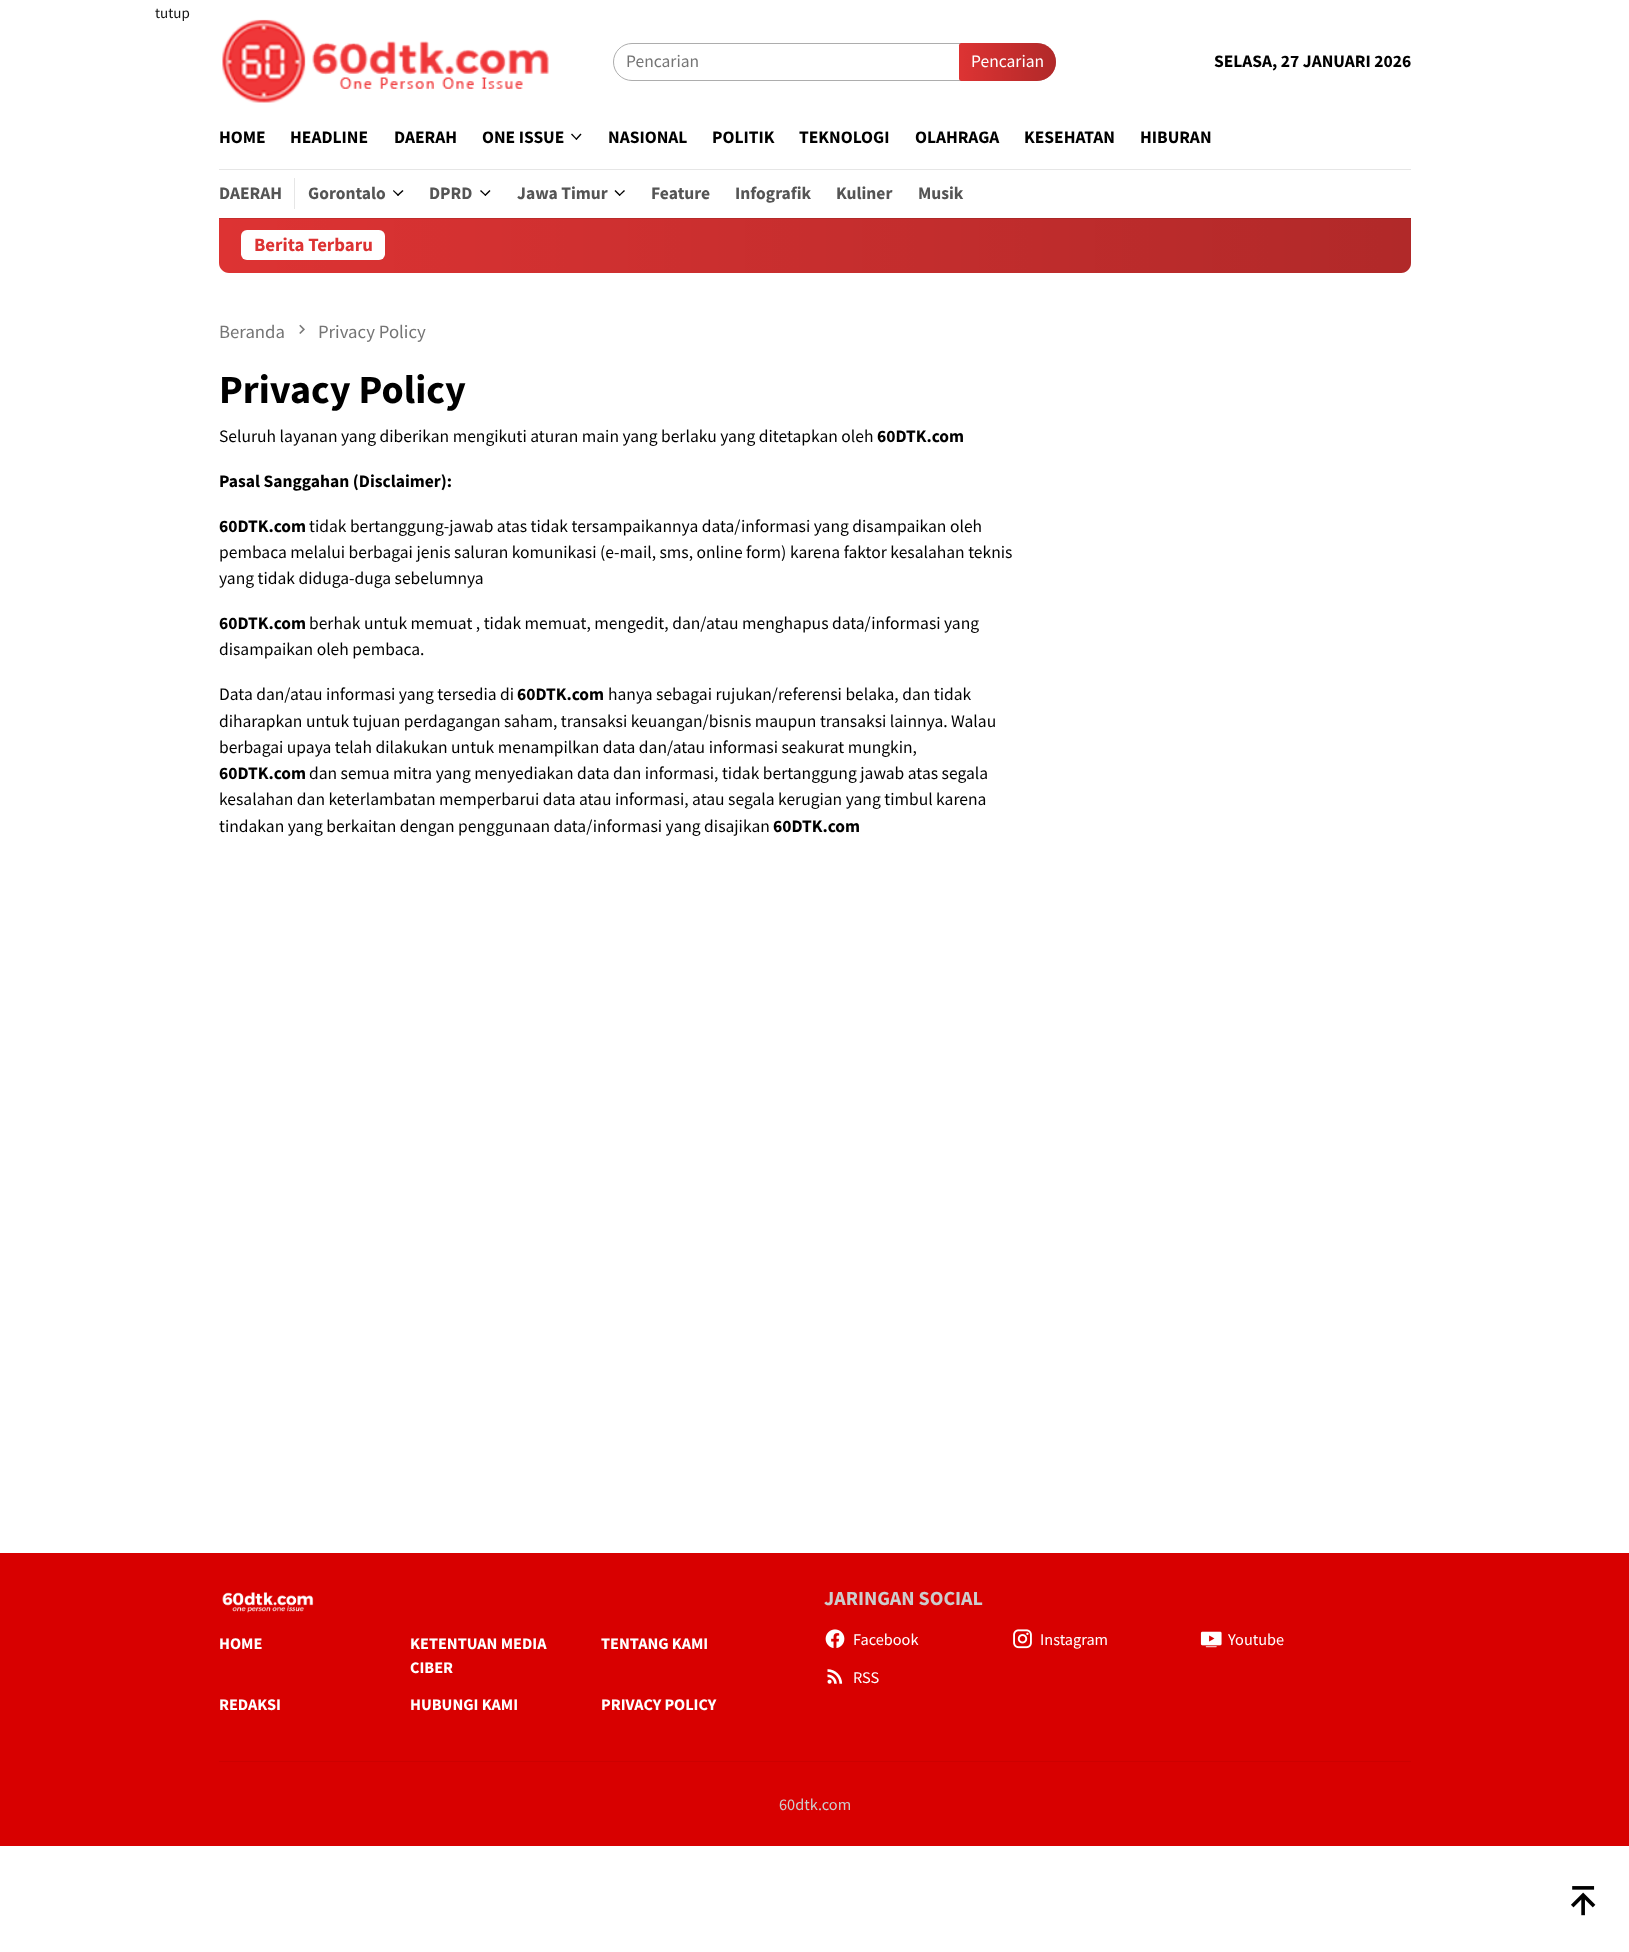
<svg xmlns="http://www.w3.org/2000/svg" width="1629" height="1952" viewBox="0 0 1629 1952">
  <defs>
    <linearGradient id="g1" gradientUnits="userSpaceOnUse" x1="959" y1="62" x2="1056" y2="62"><stop offset="0" stop-color="rgb(0,0,0)" stop-opacity="0"/><stop offset="1" stop-color="rgb(0,0,0)" stop-opacity="0.2"/></linearGradient>
    <linearGradient id="g2" gradientUnits="userSpaceOnUse" x1="219" y1="245" x2="1411" y2="245"><stop offset="0" stop-color="rgb(0,0,0)" stop-opacity="0"/><stop offset="1" stop-color="rgb(0,0,0)" stop-opacity="0.2"/></linearGradient>
  </defs>
  <rect width="100%" height="100%" fill="rgb(255,255,255)"/>
  <text x="155" y="18" font-family="Source Sans Pro" font-size="15" fill="rgb(17,17,17)">tutup</text>
  <image x="222" y="19" width="327" height="84" href="pic1.png"/>
  <rect x="613.5" y="43.5" width="442" height="37" rx="18.5" fill="none" stroke="rgb(173,173,173)"/>
  <text x="626" y="67" font-family="Source Sans Pro" font-size="17.5" fill="rgb(117,117,117)">Pencarian</text>
  <path d="M961.5 43H1037C1047.5 43 1056 51.5 1056 62C1056 72.5 1047.5 81 1037 81H961.5C960 81 959 80 959 78.5V45.5C959 44 960 43 961.5 43Z" fill="rgb(221,51,51)"/>
  <path d="M961.5 43H1037C1047.5 43 1056 51.5 1056 62C1056 72.5 1047.5 81 1037 81H961.5C960 81 959 80 959 78.5V45.5C959 44 960 43 961.5 43Z" fill="url(#g1)"/>
  <text x="971" y="67" font-family="Source Sans Pro" font-size="17.5" fill="rgb(255,255,255)">Pencarian</text>
  <text x="1214" y="67" font-family="Source Sans Pro" font-size="17.5" font-weight="bold" fill="rgb(0,0,0)">SELASA, 27 JANUARI 2026</text>
  <rect x="219" y="169" width="1192" height="1" fill="rgb(230,230,230)"/>
  <g font-family="Source Sans Pro" font-size="17.5" font-weight="bold" fill="rgb(0,0,0)">
    <text x="219" y="143">HOME</text>
    <text x="290" y="143">HEADLINE</text>
    <text x="394" y="143">DAERAH</text>
    <text x="482" y="143">ONE ISSUE</text>
  </g>
  <path d="M580.5 133.5L581.5 134.5L576.5 140L575.5 139Z" fill="rgb(0,0,0)"/>
  <path d="M572 133.5L577 139L576.5 140L571 134.5Z" fill="rgb(0,0,0)"/>
  <g font-family="Source Sans Pro" font-size="17.5" font-weight="bold" fill="rgb(0,0,0)">
    <text x="608" y="143">NASIONAL</text>
    <text x="712" y="143">POLITIK</text>
    <text x="799" y="143">TEKNOLOGI</text>
    <text x="915" y="143">OLAHRAGA</text>
    <text x="1024" y="143">KESEHATAN</text>
    <text x="1140" y="143">HIBURAN</text>
  </g>
  <path d="M219 218H1411V263C1411 268.5 1406.5 273 1401 273H229C223.5 273 219 268.5 219 263Z" fill="rgb(221,51,51)"/>
  <path d="M219 218H1411V263C1411 268.5 1406.5 273 1401 273H229C223.5 273 219 268.5 219 263Z" fill="url(#g2)"/>
  <rect x="219" y="218" width="1192" height="1" fill="rgba(0,0,0,0.1)"/>
  <rect x="294" y="178" width="1" height="31" fill="rgb(230,230,230)"/>
  <g font-family="Source Sans Pro" font-size="17.5" font-weight="bold" fill="rgb(85,85,85)">
    <text x="219" y="199">DAERAH</text>
    <text x="308" y="199">Gorontalo</text>
  </g>
  <path d="M402.5 190L403.5 191L398 196L397 195Z" fill="rgb(0,0,0)"/>
  <path d="M393.5 190L399 195L398 196L393 191Z" fill="rgb(0,0,0)"/>
  <text x="429" y="199" font-family="Source Sans Pro" font-size="17.5" font-weight="bold" fill="rgb(85,85,85)">DPRD</text>
  <path d="M489.5 190L490.5 191L485.5 196L484.5 195Z" fill="rgb(0,0,0)"/>
  <path d="M481 190L486 195L485.5 196L480 191Z" fill="rgb(0,0,0)"/>
  <text x="517" y="199" font-family="Source Sans Pro" font-size="17.5" font-weight="bold" fill="rgb(85,85,85)">Jawa Timur</text>
  <path d="M624 190L625 191L619.5 196L619 195Z" fill="rgb(0,0,0)"/>
  <path d="M615.5 190L620.5 195L619.5 196L614.5 191Z" fill="rgb(0,0,0)"/>
  <g font-family="Source Sans Pro" font-size="17.5" font-weight="bold" fill="rgb(85,85,85)">
    <text x="651" y="199">Feature</text>
    <text x="735" y="199">Infografik</text>
    <text x="836" y="199">Kuliner</text>
    <text x="918" y="199">Musik</text>
  </g>
  <rect x="241" y="230" width="144" height="30" rx="6" fill="rgb(255,255,255)"/>
  <text x="254" y="251" font-family="Source Sans Pro" font-size="18.75" font-weight="bold" fill="rgb(221,51,51)">Berita Terbaru</text>
  <text x="219" y="338" font-family="Source Sans Pro" font-size="18.75" fill="rgb(117,117,117)">Beranda</text>
  <image x="299" y="324" width="6" height="10" href="pic2.png"/>
  <text x="318" y="338" font-family="Source Sans Pro" font-size="18.75" fill="rgb(117,117,117)">Privacy Policy</text>
  <text x="219" y="403" font-family="Source Sans Pro" font-size="40" font-weight="bold" fill="rgb(0,0,0)">Privacy Policy</text>
  <text x="219" y="442" font-family="Source Sans Pro" font-size="17.5" fill="rgb(0,0,0)">Seluruh layanan yang diberikan mengikuti aturan main yang berlaku yang ditetapkan oleh</text>
  <g font-family="Source Sans Pro" font-size="17.5" font-weight="bold" fill="rgb(0,0,0)">
    <text x="877" y="442">60DTK.com</text>
    <text x="219" y="487">Pasal Sanggahan (Disclaimer):</text>
    <text x="219" y="532">60DTK.com</text>
  </g>
  <g font-family="Source Sans Pro" font-size="17.5" fill="rgb(0,0,0)">
    <text x="309" y="532">tidak bertanggung-jawab atas tidak tersampaikannya data/informasi yang disampaikan oleh</text>
    <text>
      <tspan x="219" y="558">pembaca melalui berbagai jenis saluran komunikasi (e-mail, sms, online form) karena faktor kesalahan teknis</tspan>
      <tspan x="219" y="584">yang tidak diduga-duga sebelumnya</tspan>
    </text>
  </g>
  <text x="219" y="629" font-family="Source Sans Pro" font-size="17.5" font-weight="bold" fill="rgb(0,0,0)">60DTK.com</text>
  <g font-family="Source Sans Pro" font-size="17.5" fill="rgb(0,0,0)">
    <text x="309" y="629">berhak untuk memuat , tidak memuat, mengedit, dan/atau menghapus data/informasi yang</text>
    <text x="219" y="655">disampaikan oleh pembaca.</text>
    <text x="219" y="700">Data dan/atau informasi yang tersedia di</text>
  </g>
  <text x="517" y="700" font-family="Source Sans Pro" font-size="17.5" font-weight="bold" fill="rgb(0,0,0)">60DTK.com</text>
  <g font-family="Source Sans Pro" font-size="17.5" fill="rgb(0,0,0)">
    <text x="608" y="700">hanya sebagai rujukan/referensi belaka, dan tidak</text>
    <text>
      <tspan x="219" y="727">diharapkan untuk tujuan perdagangan saham, transaksi keuangan/bisnis maupun transaksi lainnya. Walau</tspan>
      <tspan x="219" y="753">berbagai upaya telah dilakukan untuk menampilkan data dan/atau informasi seakurat mungkin,</tspan>
    </text>
  </g>
  <text x="219" y="779" font-family="Source Sans Pro" font-size="17.5" font-weight="bold" fill="rgb(0,0,0)">60DTK.com</text>
  <g font-family="Source Sans Pro" font-size="17.5" fill="rgb(0,0,0)">
    <text x="309" y="779">dan semua mitra yang menyediakan data dan informasi, tidak bertanggung jawab atas segala</text>
    <text>
      <tspan x="219" y="805">kesalahan dan keterlambatan memperbarui data atau informasi, atau segala kerugian yang timbul karena</tspan>
      <tspan x="219" y="832">tindakan yang berkaitan dengan penggunaan data/informasi yang disajikan</tspan>
    </text>
  </g>
  <text x="773" y="832" font-family="Source Sans Pro" font-size="17.5" font-weight="bold" fill="rgb(0,0,0)">60DTK.com</text>
  <rect x="0" y="1553" width="1629" height="293" fill="rgb(216,0,0)"/>
  <image x="222" y="1592" width="92" height="21" href="pic3.png"/>
  <g font-family="Source Sans Pro" font-size="16.25" font-weight="bold" fill="rgb(255,255,255)">
    <text x="219" y="1649">HOME</text>
    <text>
      <tspan x="410" y="1649">KETENTUAN MEDIA</tspan>
      <tspan x="410" y="1673">CIBER</tspan>
    </text>
    <text x="601" y="1649">TENTANG KAMI</text>
    <text x="219" y="1710">REDAKSI</text>
    <text x="410" y="1710">HUBUNGI KAMI</text>
    <text x="601" y="1710">PRIVACY POLICY</text>
  </g>
  <text x="824" y="1605" font-family="Source Sans Pro" font-size="20" font-weight="bold" fill="rgb(204,204,204)">JARINGAN SOCIAL</text>
  <image x="825" y="1629" width="20" height="19" href="pic4.png"/>
  <text x="853" y="1645" font-family="Source Sans Pro" font-size="16.25" fill="rgb(255,255,255)">Facebook</text>
  <image x="1013" y="1629" width="19" height="20" href="pic5.png"/>
  <text x="1040" y="1645" font-family="Source Sans Pro" font-size="16.25" fill="rgb(255,255,255)">Instagram</text>
  <image x="1200" y="1631" width="22" height="17" href="pic6.png"/>
  <text x="1228" y="1645" font-family="Source Sans Pro" font-size="16.25" fill="rgb(255,255,255)">Youtube</text>
  <image x="827" y="1669" width="16" height="15" href="pic7.png"/>
  <text x="853" y="1683" font-family="Source Sans Pro" font-size="16.25" fill="rgb(255,255,255)">RSS</text>
  <rect x="219" y="1761" width="1192" height="1" fill="rgb(205,0,0)"/>
  <text x="779" y="1810" font-family="Source Sans Pro" font-size="16.25" fill="rgb(204,204,204)">60dtk.com</text>
  <image x="1571" y="1886" width="25" height="30" href="pic8.png"/>
</svg>
